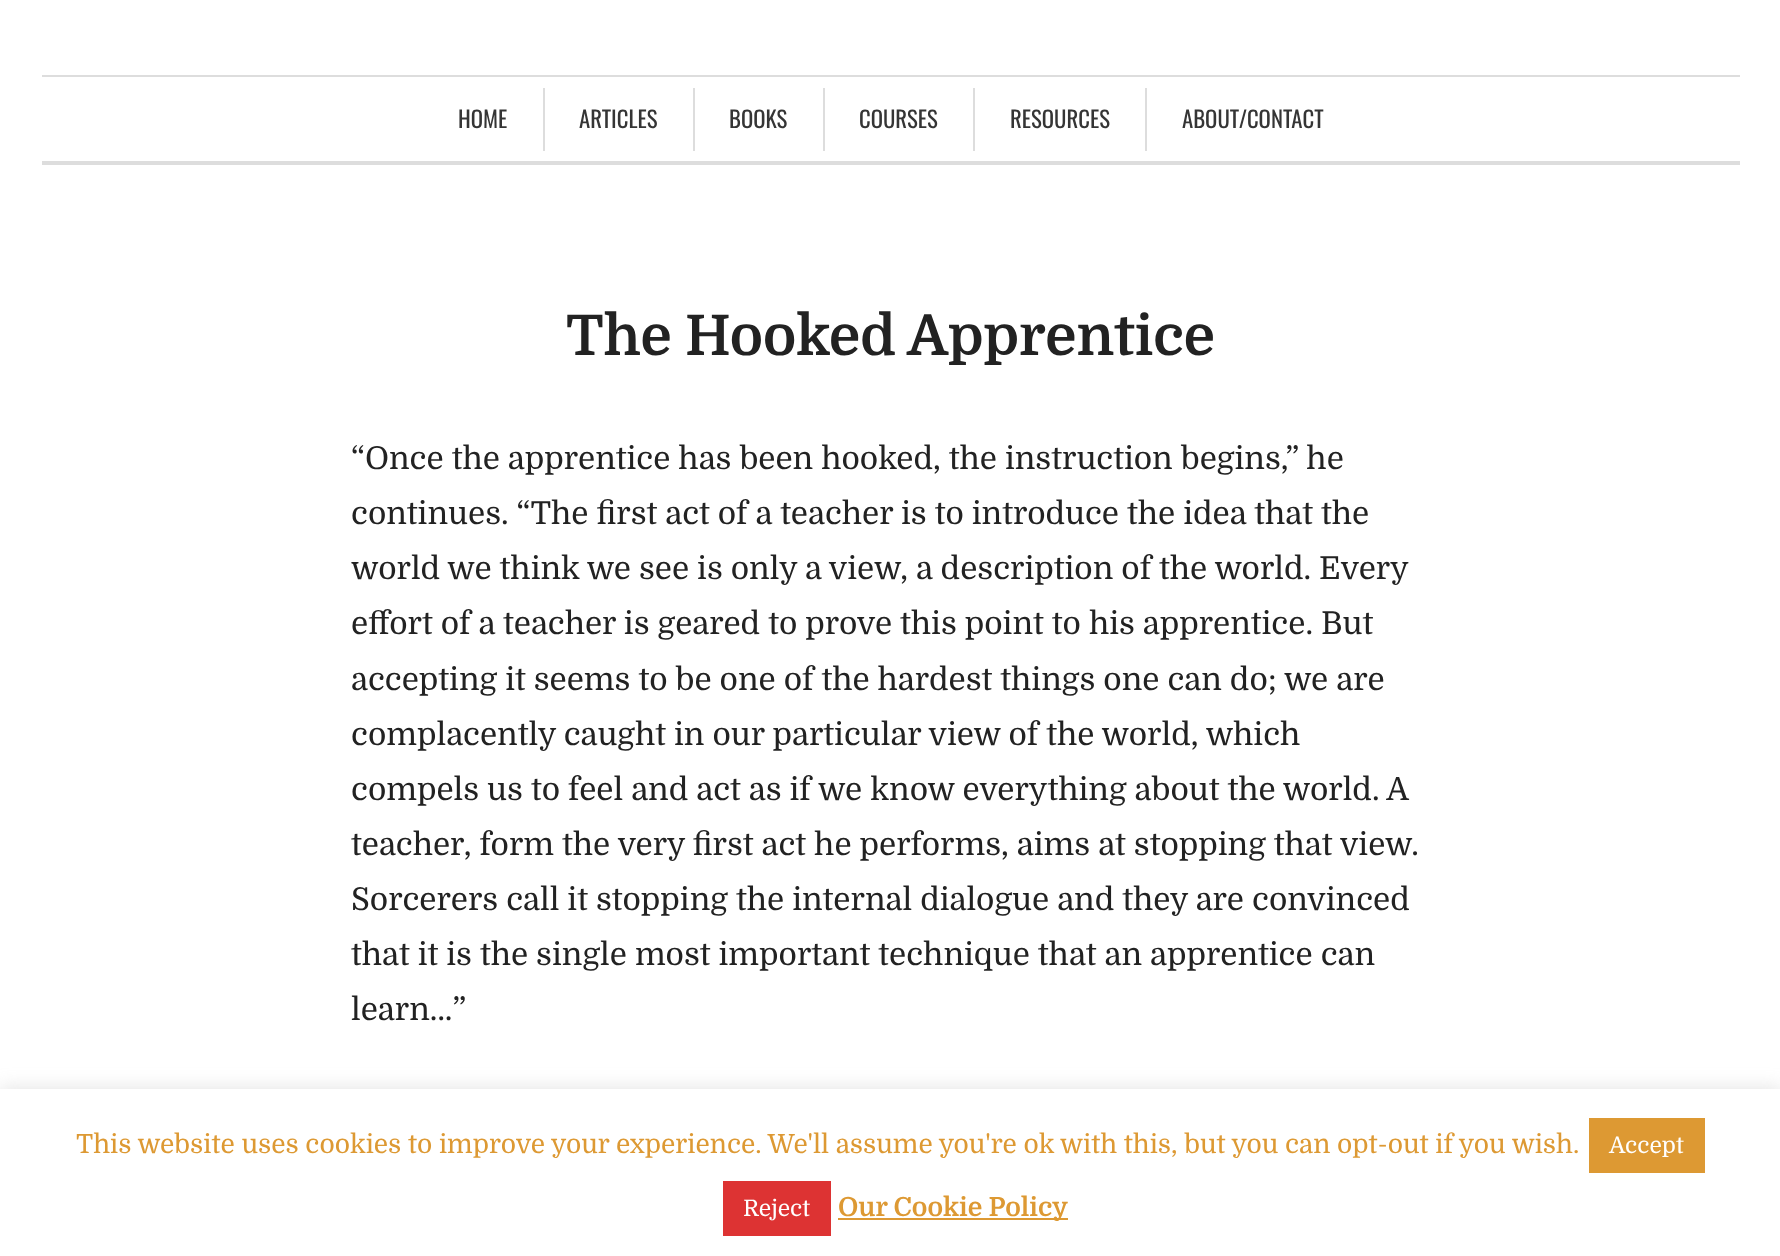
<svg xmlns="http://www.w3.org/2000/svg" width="1780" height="1256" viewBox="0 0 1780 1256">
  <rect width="100%" height="100%" fill="rgb(255,255,255)"/>
  <rect x="42" y="75" width="1698" height="2" fill="rgb(221,221,221)"/>
  <rect x="42" y="161" width="1698" height="4" fill="rgb(221,221,221)"/>
  <rect x="543" y="88" width="2" height="63" fill="rgb(221,221,221)"/>
  <text x="458" y="128" font-family="Oswald" font-size="22.75" fill="rgb(53,53,53)">HOME</text>
  <rect x="693" y="88" width="2" height="63" fill="rgb(221,221,221)"/>
  <text x="579" y="128" font-family="Oswald" font-size="22.75" fill="rgb(53,53,53)">ARTICLES</text>
  <rect x="823" y="88" width="2" height="63" fill="rgb(221,221,221)"/>
  <text x="729" y="128" font-family="Oswald" font-size="22.75" fill="rgb(53,53,53)">BOOKS</text>
  <rect x="973" y="88" width="2" height="63" fill="rgb(221,221,221)"/>
  <text x="859" y="128" font-family="Oswald" font-size="22.75" fill="rgb(53,53,53)">COURSES</text>
  <rect x="1145" y="88" width="2" height="63" fill="rgb(221,221,221)"/>
  <g font-family="Oswald" font-size="22.75" fill="rgb(53,53,53)">
    <text x="1010" y="128">RESOURCES</text>
    <text x="1182" y="128">ABOUT/CONTACT</text>
  </g>
  <text x="566" y="355" font-family="Domine" font-size="56" font-weight="bold" fill="rgb(34,34,34)">The Hooked Apprentice</text>
  <g font-family="Domine" font-size="31.5" fill="rgb(34,34,34)">
    <text>
      <tspan x="351" y="469">“Once the apprentice has been hooked, the instruction begins,” he</tspan>
      <tspan x="351" y="524">continues. “The first act of a teacher is to introduce the idea that the</tspan>
      <tspan x="351" y="579">world we think we see is only a view, a description of the world. Every</tspan>
      <tspan x="351" y="634">effort of a teacher is geared to prove this point to his apprentice. But</tspan>
      <tspan x="351" y="690">accepting it seems to be one of the hardest things one can do; we are</tspan>
      <tspan x="351" y="745">complacently caught in our particular view of the world, which</tspan>
      <tspan x="351" y="800">compels us to feel and act as if we know everything about the world. A</tspan>
      <tspan x="351" y="855">teacher, form the very first act he performs, aims at stopping that view.</tspan>
      <tspan x="351" y="910">Sorcerers call it stopping the internal dialogue and they are convinced</tspan>
      <tspan x="351" y="965">that it is the single most important technique that an apprentice can</tspan>
      <tspan x="351" y="1020">learn…”</tspan>
    </text>
  </g>
  <rect x="0" y="1087" width="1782" height="168" fill="rgba(172,171,171,0.3)" filter="blur(9px)"/>
  <rect x="0" y="1089" width="1780" height="167" fill="rgb(255,255,255)"/>
  <text x="76" y="1153" font-family="Domine" font-size="26.25" fill="rgb(221,153,51)">This website uses cookies to improve your experience. We'll assume you're ok with this, but you can opt-out if you wish.</text>
  <rect x="1589" y="1118" width="116" height="55" fill="rgb(221,153,51)"/>
  <text x="1609" y="1153" font-family="Domine" font-size="22.75" fill="rgb(255,255,255)">Accept</text>
  <rect x="723" y="1181" width="108" height="55" fill="rgb(221,51,51)"/>
  <text x="743" y="1216" font-family="Domine" font-size="22.75" fill="rgb(255,255,255)">Reject</text>
  <rect x="838" y="1218" width="230" height="2" fill="rgb(221,153,51)"/>
  <text x="838" y="1216" font-family="Domine" font-size="26.25" font-weight="bold" fill="rgb(221,153,51)">Our Cookie Policy</text>
</svg>
